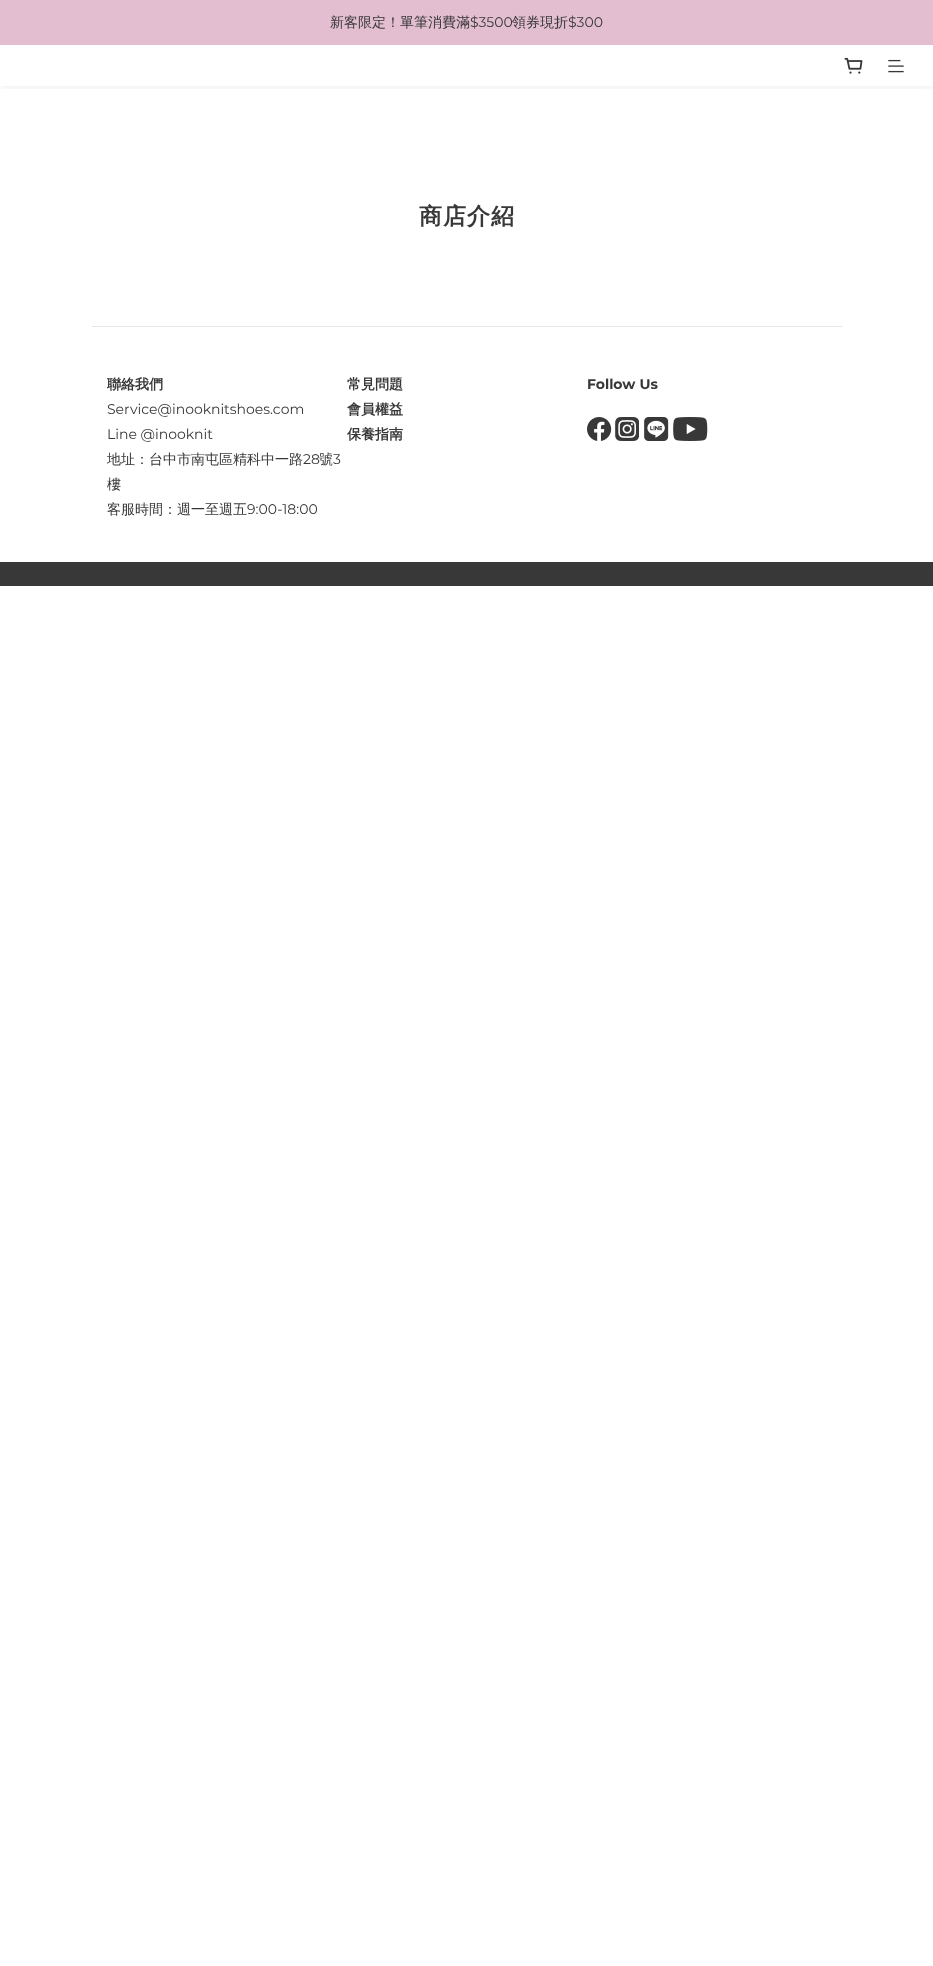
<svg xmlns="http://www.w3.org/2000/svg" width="933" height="1966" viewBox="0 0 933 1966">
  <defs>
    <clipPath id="clip1"><rect x="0" y="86" width="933" height="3"/></clipPath>
  </defs>
  <rect width="100%" height="100%" fill="rgb(255,255,255)"/>
  <rect x="0" y="0" width="933" height="45" fill="rgb(226,190,208)"/>
  <text x="330" y="27" font-family="WenQuanYi Zen Hei" font-size="14" font-weight="500" fill="rgb(56,56,56)">新客限定！單筆消費滿</text>
  <text x="470" y="27" font-family="Montserrat" font-size="14" fill="rgb(56,56,56)">$3500</text>
  <text x="512" y="27" font-family="WenQuanYi Zen Hei" font-size="14" font-weight="500" fill="rgb(56,56,56)">領券現折</text>
  <text x="568" y="27" font-family="Montserrat" font-size="14" fill="rgb(56,56,56)">$300</text>
  <g clip-path="url(#clip1)">
    <rect x="0" y="47" width="933" height="41" fill="rgba(0,0,0,0.06)" filter="blur(3px)"/>
  </g>
  <image x="844" y="57" width="19" height="17" href="pic1.png"/>
  <image x="888" y="59" width="16" height="14" href="pic2.png"/>
  <text x="419" y="224" font-family="WenQuanYi Zen Hei" font-size="23" font-weight="bold" letter-spacing="1" fill="rgb(56,56,56)">商店介紹</text>
  <rect x="92" y="326" width="750" height="1" fill="rgb(230,230,230)"/>
  <text x="107" y="389" font-family="WenQuanYi Zen Hei" font-size="14" font-weight="bold" fill="rgb(56,56,56)">聯絡我們</text>
  <g font-family="Montserrat" font-size="14" fill="rgb(56,56,56)">
    <text>
      <tspan x="107" y="414">Service@inooknitshoes.com</tspan>
      <tspan x="107" y="439">Line @inooknit</tspan>
    </text>
  </g>
  <text x="107" y="464" font-family="WenQuanYi Zen Hei" font-size="14" font-weight="500" fill="rgb(56,56,56)">地址：台中市南屯區精科中一路</text>
  <text x="303" y="464" font-family="Montserrat" font-size="14" fill="rgb(56,56,56)">28</text>
  <text x="319" y="464" font-family="WenQuanYi Zen Hei" font-size="14" font-weight="500" fill="rgb(56,56,56)">號</text>
  <text x="333" y="464" font-family="Montserrat" font-size="14" fill="rgb(56,56,56)">3</text>
  <g font-family="WenQuanYi Zen Hei" font-size="14" font-weight="500" fill="rgb(56,56,56)">
    <text>
      <tspan x="107" y="489">樓</tspan>
      <tspan x="107" y="514">客服時間：週一至週五</tspan>
    </text>
  </g>
  <text x="247" y="514" font-family="Montserrat" font-size="14" fill="rgb(56,56,56)">9:00-18:00</text>
  <g font-family="WenQuanYi Zen Hei" font-size="14" font-weight="bold" fill="rgb(56,56,56)">
    <text>
      <tspan x="347" y="389">常見問題</tspan>
      <tspan x="347" y="414">會員權益</tspan>
      <tspan x="347" y="439">保養指南</tspan>
    </text>
  </g>
  <text x="587" y="389" font-family="Montserrat" font-size="14" font-weight="bold" fill="rgb(56,56,56)">Follow Us</text>
  <image x="587" y="417" width="25" height="24" href="pic3.png"/>
  <image x="615" y="417" width="24" height="24" href="pic4.png"/>
  <image x="644" y="417" width="25" height="24" href="pic5.png"/>
  <image x="673" y="417" width="35" height="24" href="pic6.png"/>
  <rect x="0" y="562" width="933" height="24" fill="rgb(56,56,56)"/>
</svg>
